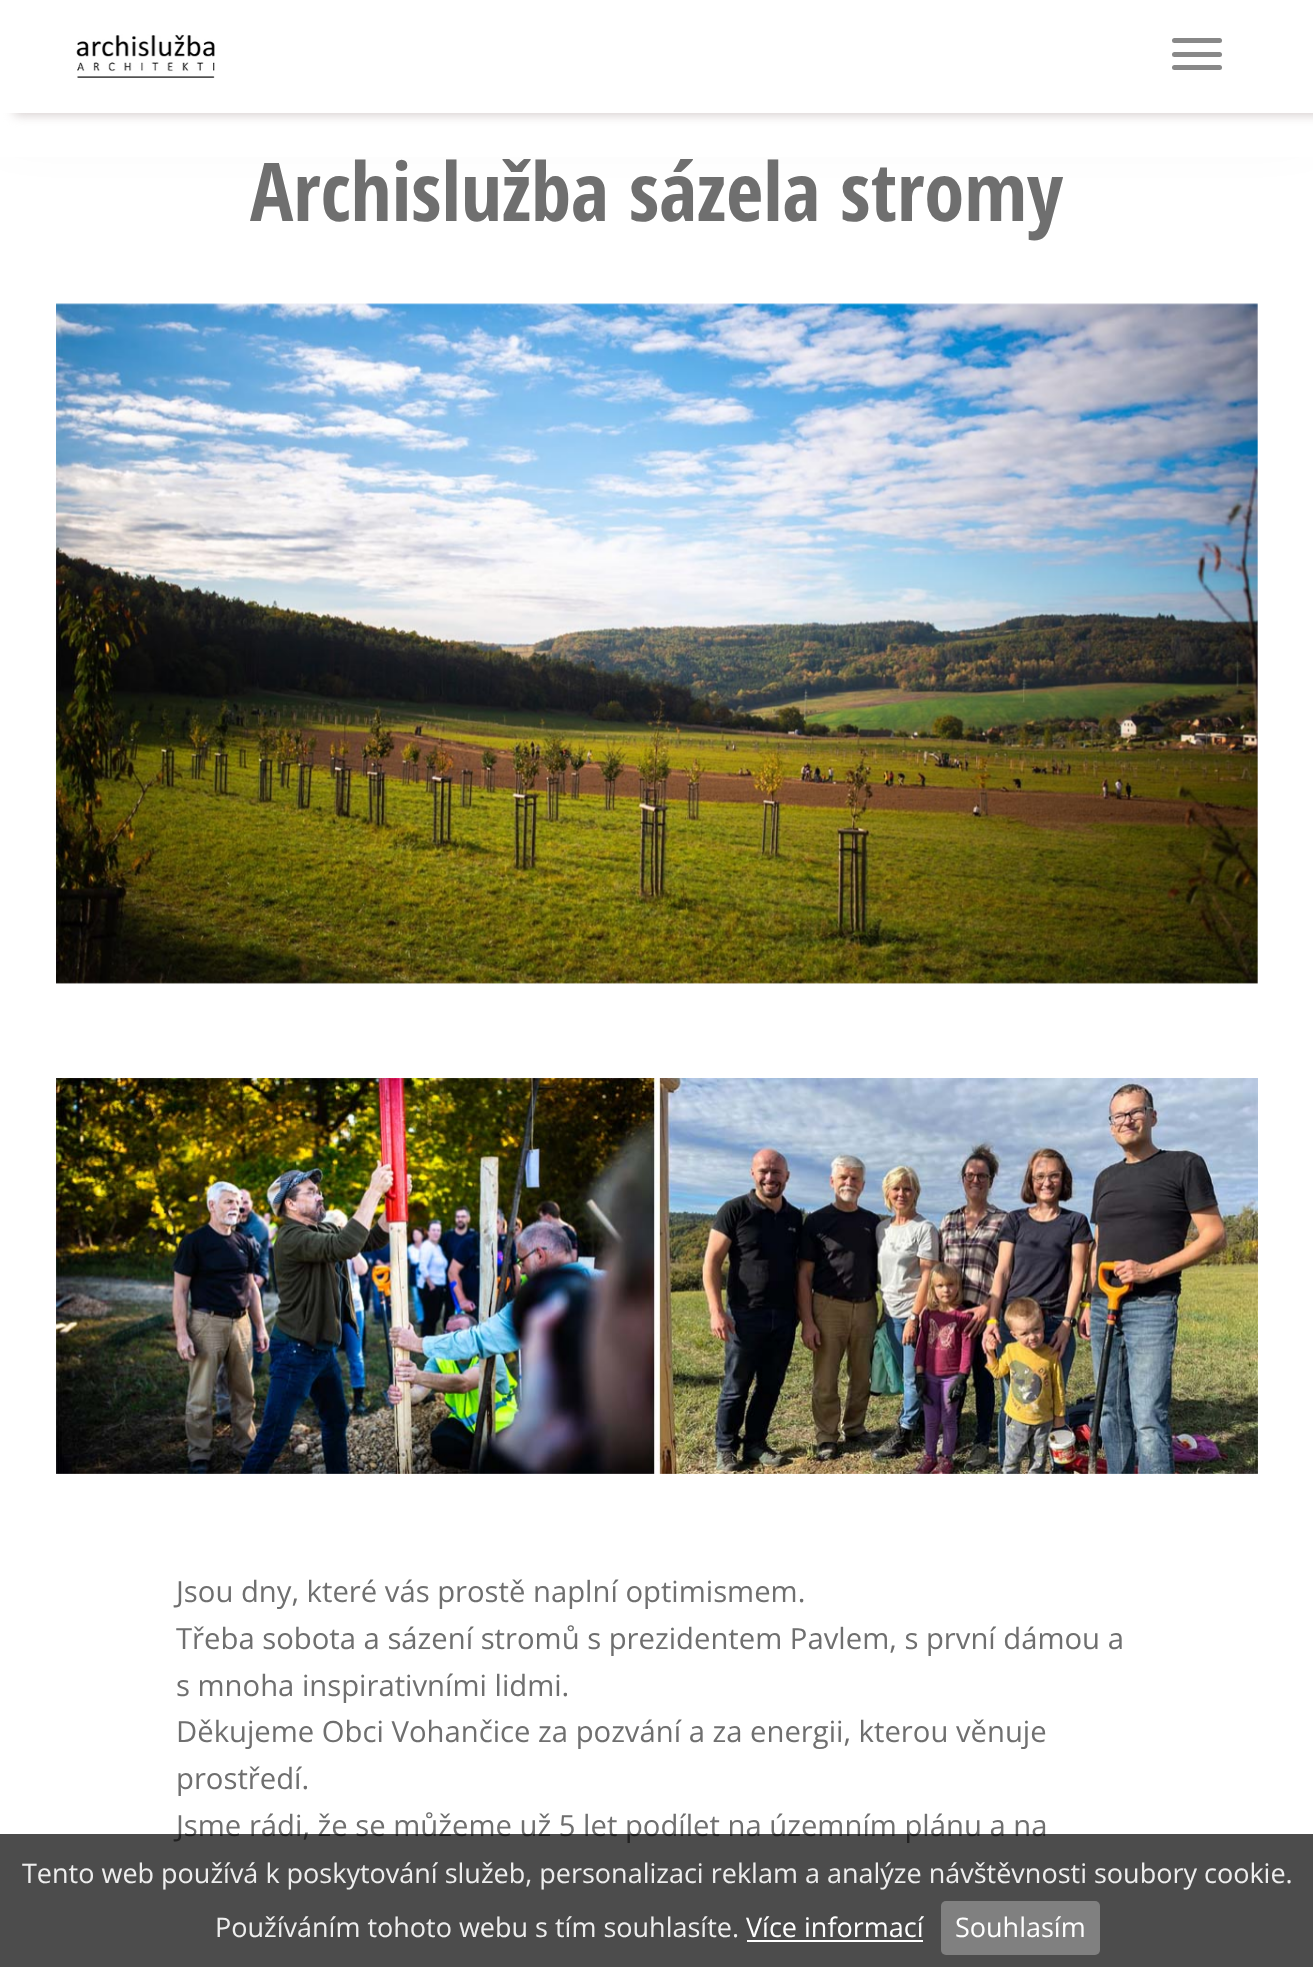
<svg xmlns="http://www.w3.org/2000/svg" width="1313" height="1967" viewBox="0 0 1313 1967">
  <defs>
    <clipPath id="clip1"><path d="M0 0H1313V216H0ZM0 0H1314V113H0Z" clip-rule="evenodd"/></clipPath>
    <clipPath id="clip2"><path d="M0 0H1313V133H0ZM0 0H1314V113H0Z" clip-rule="evenodd"/></clipPath>
  </defs>
  <rect width="100%" height="100%" fill="rgb(255,255,255)"/>
  <g clip-path="url(#clip1)">
    <rect x="0" y="0" width="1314" height="113" fill="rgba(0,0,0,0.1)" filter="blur(34px)"/>
  </g>
  <rect x="0" y="112" width="1313" height="1" fill="rgba(255,255,255,0.9)"/>
  <rect x="0" y="113" width="1313" height="44" fill="rgb(255,255,255)"/>
  <g clip-path="url(#clip2)">
    <rect x="14" y="-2" width="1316" height="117" fill="rgb(213,206,206)" filter="blur(5.5px)"/>
  </g>
  <image x="76" y="34" width="139" height="44" href="pic1.png"/>
  <rect x="1172" y="38" width="50" height="5" rx="2.5" fill="rgb(136,136,136)"/>
  <rect x="1172" y="52" width="50" height="5" rx="2.5" fill="rgb(136,136,136)"/>
  <rect x="1172" y="65" width="50" height="5" rx="2.5" fill="rgb(136,136,136)"/>
  <text x="250" y="221" font-family="Open Sans Condensed" font-size="81" font-weight="bold" fill="rgb(111,111,111)">Archislužba sázela stromy</text>
  <image x="56" y="303" width="1202" height="681" href="pic2.png"/>
  <image x="56" y="1078" width="1202" height="396" href="pic3.png"/>
  <g font-family="Open Sans" font-size="29.25" fill="rgb(111,111,111)">
    <text>
      <tspan x="176" y="1602">Jsou dny, které vás prostě naplní optimismem.</tspan>
      <tspan x="176" y="1649">Třeba sobota a sázení stromů s prezidentem Pavlem, s první dámou a</tspan>
      <tspan x="176" y="1696">s mnoha inspirativními lidmi.</tspan>
      <tspan x="176" y="1742">Děkujeme Obci Vohančice za pozvání a za energii, kterou věnuje</tspan>
      <tspan x="176" y="1789">prostředí.</tspan>
      <tspan x="176" y="1836">Jsme rádi, že se můžeme už 5 let podílet na územním plánu a na</tspan>
    </text>
  </g>
  <rect x="0" y="1834" width="1313" height="133" fill="rgba(0,0,0,0.7)"/>
  <g font-family="Open Sans" font-size="27" fill="rgb(238,238,238)">
    <text x="22" y="1883">Tento web používá k poskytování služeb, personalizaci reklam a analýze návštěvnosti soubory cookie.</text>
    <text x="215" y="1937">Používáním tohoto webu s tím souhlasíte.</text>
  </g>
  <text x="746" y="1937" font-family="Open Sans" font-size="27" fill="rgb(255,255,255)">Více informací</text>
  <rect x="747" y="1940" width="176" height="2" fill="rgb(255,255,255)"/>
  <rect x="941" y="1901" width="159" height="54" rx="5" fill="rgb(128,128,128)"/>
  <text x="955" y="1937" font-family="Open Sans" font-size="27" fill="rgb(255,255,255)">Souhlasím</text>
</svg>
